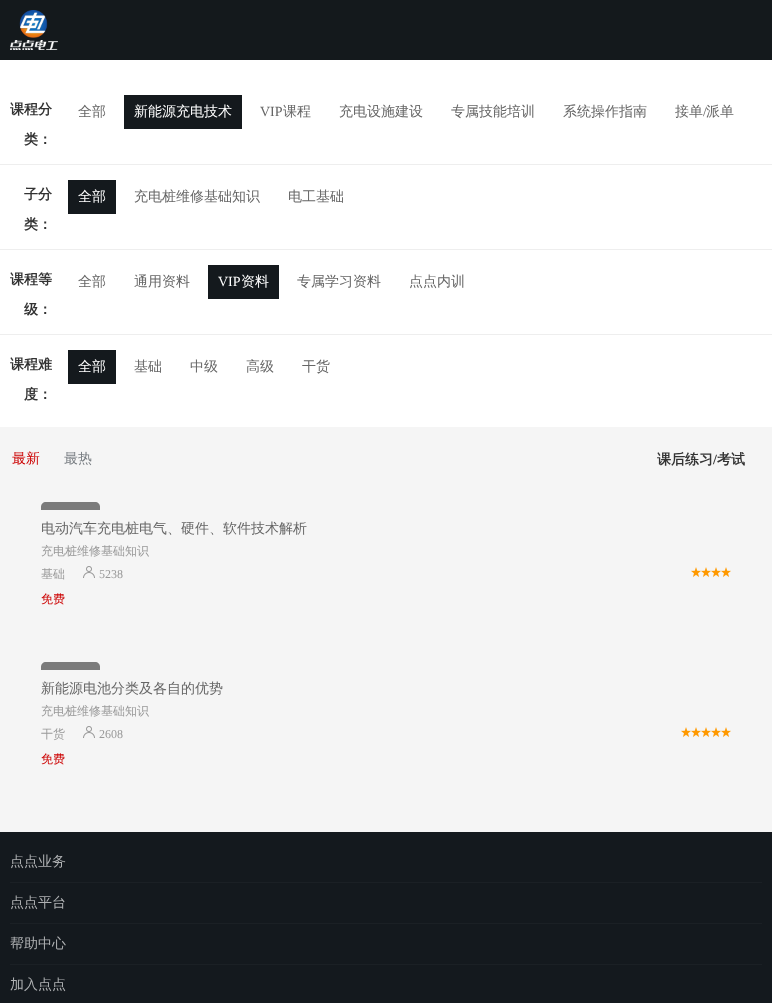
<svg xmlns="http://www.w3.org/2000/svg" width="772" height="1003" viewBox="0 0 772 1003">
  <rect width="100%" height="100%" fill="rgb(245,245,245)"/>
  <rect x="0" y="0" width="772" height="60" fill="rgb(20,25,28)"/>
  <image x="10" y="10" width="48" height="40" href="pic1.png"/>
  <rect x="0" y="60" width="772" height="367" fill="rgb(255,255,255)"/>
  <rect x="0" y="164" width="772" height="1" fill="rgb(238,238,238)"/>
  <g font-family="WenQuanYi Zen Hei" font-size="14" font-weight="bold" fill="rgb(51,51,51)">
    <text x="10" y="114">课程分</text>
    <text x="24" y="144">类：</text>
  </g>
  <text x="78" y="116" font-family="WenQuanYi Zen Hei" font-size="14" font-weight="500" fill="rgb(102,102,102)">全部</text>
  <rect x="124" y="95" width="118" height="34" fill="rgb(20,25,29)"/>
  <text x="134" y="116" font-family="WenQuanYi Zen Hei" font-size="14" font-weight="500" fill="rgb(255,255,255)">新能源充电技术</text>
  <text x="260" y="116" font-family="Liberation Serif" font-size="14" fill="rgb(102,102,102)">VIP</text>
  <g font-family="WenQuanYi Zen Hei" font-size="14" font-weight="500" fill="rgb(102,102,102)">
    <text x="283" y="116">课程</text>
    <text x="339" y="116">充电设施建设</text>
    <text x="451" y="116">专属技能培训</text>
    <text x="563" y="116">系统操作指南</text>
    <text x="675" y="116">接单</text>
  </g>
  <text x="703" y="116" font-family="Liberation Serif" font-size="14" fill="rgb(102,102,102)">/</text>
  <text x="706" y="116" font-family="WenQuanYi Zen Hei" font-size="14" font-weight="500" fill="rgb(102,102,102)">派单</text>
  <rect x="0" y="249" width="772" height="1" fill="rgb(238,238,238)"/>
  <g font-family="WenQuanYi Zen Hei" font-size="14" font-weight="bold" fill="rgb(51,51,51)">
    <text x="24" y="199">子分</text>
    <text x="24" y="229">类：</text>
  </g>
  <rect x="68" y="180" width="48" height="34" fill="rgb(20,25,29)"/>
  <text x="78" y="201" font-family="WenQuanYi Zen Hei" font-size="14" font-weight="500" fill="rgb(255,255,255)">全部</text>
  <g font-family="WenQuanYi Zen Hei" font-size="14" font-weight="500" fill="rgb(102,102,102)">
    <text x="134" y="201">充电桩维修基础知识</text>
    <text x="288" y="201">电工基础</text>
  </g>
  <rect x="0" y="334" width="772" height="1" fill="rgb(238,238,238)"/>
  <g font-family="WenQuanYi Zen Hei" font-size="14" font-weight="bold" fill="rgb(51,51,51)">
    <text x="10" y="284">课程等</text>
    <text x="24" y="314">级：</text>
  </g>
  <g font-family="WenQuanYi Zen Hei" font-size="14" font-weight="500" fill="rgb(102,102,102)">
    <text x="78" y="286">全部</text>
    <text x="134" y="286">通用资料</text>
  </g>
  <rect x="208" y="265" width="71" height="34" fill="rgb(20,25,29)"/>
  <text x="218" y="286" font-family="Liberation Serif" font-size="14" fill="rgb(255,255,255)">VIP</text>
  <text x="241" y="286" font-family="WenQuanYi Zen Hei" font-size="14" font-weight="500" fill="rgb(255,255,255)">资料</text>
  <g font-family="WenQuanYi Zen Hei" font-size="14" font-weight="500" fill="rgb(102,102,102)">
    <text x="297" y="286">专属学习资料</text>
    <text x="409" y="286">点点内训</text>
  </g>
  <g font-family="WenQuanYi Zen Hei" font-size="14" font-weight="bold" fill="rgb(51,51,51)">
    <text x="10" y="369">课程难</text>
    <text x="24" y="399">度：</text>
  </g>
  <rect x="68" y="350" width="48" height="34" fill="rgb(20,25,29)"/>
  <text x="78" y="371" font-family="WenQuanYi Zen Hei" font-size="14" font-weight="500" fill="rgb(255,255,255)">全部</text>
  <g font-family="WenQuanYi Zen Hei" font-size="14" font-weight="500" fill="rgb(102,102,102)">
    <text x="134" y="371">基础</text>
    <text x="190" y="371">中级</text>
    <text x="246" y="371">高级</text>
    <text x="302" y="371">干货</text>
  </g>
  <text x="12" y="463" font-family="WenQuanYi Zen Hei" font-size="14" font-weight="500" fill="rgb(204,0,0)">最新</text>
  <text x="64" y="463" font-family="WenQuanYi Zen Hei" font-size="14" font-weight="500" fill="rgb(120,125,130)">最热</text>
  <text x="657" y="464" font-family="WenQuanYi Zen Hei" font-size="14" font-weight="bold" fill="rgb(51,51,51)">课后练习</text>
  <text x="713" y="464" font-family="Liberation Serif" font-size="14" font-weight="bold" fill="rgb(51,51,51)">/</text>
  <text x="717" y="464" font-family="WenQuanYi Zen Hei" font-size="14" font-weight="bold" fill="rgb(51,51,51)">考试</text>
  <path d="M46 502H95C98 502 100 504 100 507V510H41V507C41 504 43 502 46 502Z" fill="rgb(123,123,123)"/>
  <text x="41" y="533" font-family="WenQuanYi Zen Hei" font-size="14" font-weight="500" fill="rgb(102,102,102)">电动汽车充电桩电气、硬件、软件技术解析</text>
  <g font-family="WenQuanYi Zen Hei" font-size="12" font-weight="500" fill="rgb(153,153,153)">
    <text>
      <tspan x="41" y="555">充电桩维修基础知识</tspan>
      <tspan x="41" y="578">基础</tspan>
    </text>
  </g>
  <image x="83" y="566" width="12" height="12" href="pic2.png"/>
  <text x="99" y="578" font-family="Liberation Serif" font-size="12" fill="rgb(153,153,153)">5238</text>
  <image x="691" y="567" width="10" height="10" href="pic3.png"/>
  <image x="701" y="567" width="10" height="10" href="pic3.png"/>
  <image x="711" y="567" width="10" height="10" href="pic3.png"/>
  <image x="721" y="567" width="10" height="10" href="pic3.png"/>
  <text x="41" y="603" font-family="WenQuanYi Zen Hei" font-size="12" font-weight="500" fill="rgb(204,0,0)">免费</text>
  <path d="M46 662H95C98 662 100 664 100 667V670H41V667C41 664 43 662 46 662Z" fill="rgb(123,123,123)"/>
  <text x="41" y="693" font-family="WenQuanYi Zen Hei" font-size="14" font-weight="500" fill="rgb(102,102,102)">新能源电池分类及各自的优势</text>
  <g font-family="WenQuanYi Zen Hei" font-size="12" font-weight="500" fill="rgb(153,153,153)">
    <text>
      <tspan x="41" y="715">充电桩维修基础知识</tspan>
      <tspan x="41" y="738">干货</tspan>
    </text>
  </g>
  <image x="83" y="726" width="12" height="12" href="pic2.png"/>
  <text x="99" y="738" font-family="Liberation Serif" font-size="12" fill="rgb(153,153,153)">2608</text>
  <image x="681" y="727" width="10" height="10" href="pic3.png"/>
  <image x="691" y="727" width="10" height="10" href="pic3.png"/>
  <image x="701" y="727" width="10" height="10" href="pic3.png"/>
  <image x="711" y="727" width="10" height="10" href="pic3.png"/>
  <image x="721" y="727" width="10" height="10" href="pic3.png"/>
  <text x="41" y="763" font-family="WenQuanYi Zen Hei" font-size="12" font-weight="500" fill="rgb(204,0,0)">免费</text>
  <rect x="0" y="832" width="772" height="171" fill="rgb(20,25,30)"/>
  <rect x="10" y="882" width="752" height="1" fill="rgb(27,32,37)"/>
  <text x="10" y="866" font-family="WenQuanYi Zen Hei" font-size="14" font-weight="500" fill="rgb(175,177,179)">点点业务</text>
  <rect x="10" y="923" width="752" height="1" fill="rgb(27,32,37)"/>
  <text x="10" y="907" font-family="WenQuanYi Zen Hei" font-size="14" font-weight="500" fill="rgb(175,177,179)">点点平台</text>
  <rect x="10" y="964" width="752" height="1" fill="rgb(27,32,37)"/>
  <g font-family="WenQuanYi Zen Hei" font-size="14" font-weight="500" fill="rgb(175,177,179)">
    <text x="10" y="948">帮助中心</text>
    <text x="10" y="989">加入点点</text>
  </g>
</svg>
